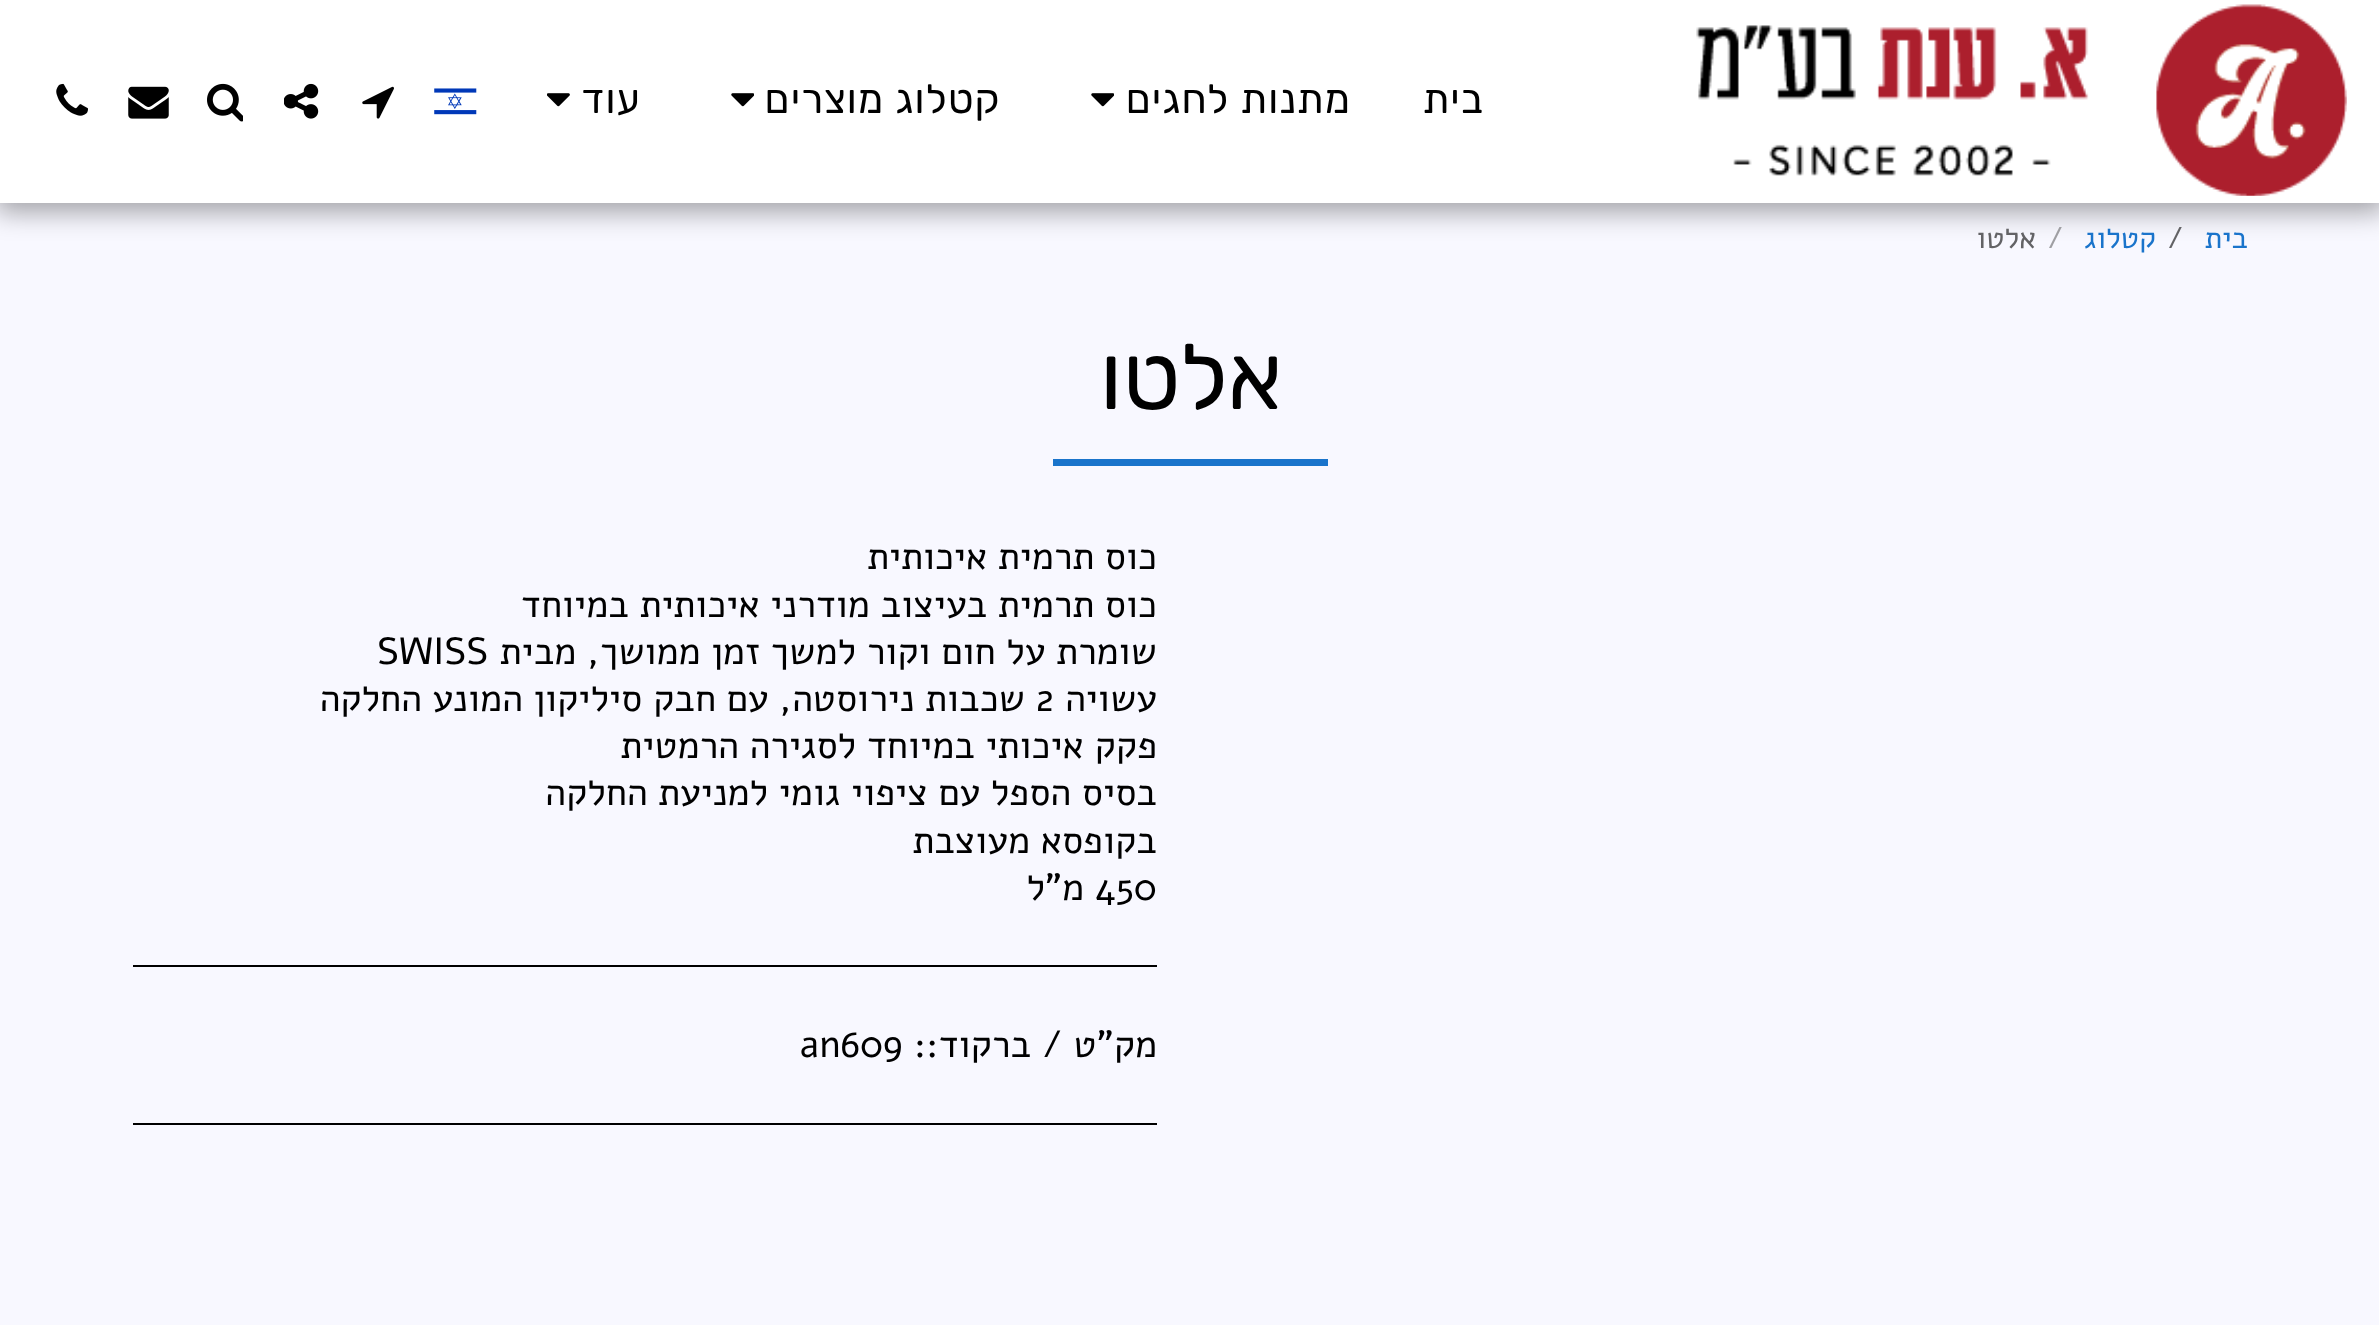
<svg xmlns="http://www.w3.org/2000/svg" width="2379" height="1325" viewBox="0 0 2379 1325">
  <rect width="100%" height="100%" fill="rgb(248,248,255)"/>
  <rect x="-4" y="0" width="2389" height="212" fill="rgba(0,0,0,0.35)" filter="blur(13.5px)"/>
  <rect x="0" y="0" width="2379" height="203" fill="rgb(255,255,255)"/>
  <image x="1696" y="4" width="651" height="192" href="pic1.png"/>
  <g font-family="Rubik" font-size="40.5" letter-spacing="1.1" direction="rtl" fill="rgb(0,0,0)">
    <text x="1484" y="113">בית</text>
    <text x="1351" y="113">מתנות לחגים</text>
  </g>
  <image x="1091" y="93" width="23" height="14" href="pic2.png"/>
  <text x="1001" y="113" font-family="Rubik" font-size="40.5" letter-spacing="1.1" direction="rtl" fill="rgb(0,0,0)">קטלוג מוצרים</text>
  <image x="731" y="93" width="23" height="14" href="pic2.png"/>
  <text x="641" y="113" font-family="Rubik" font-size="40.5" letter-spacing="1.1" direction="rtl" fill="rgb(0,0,0)">עוד</text>
  <image x="547" y="93" width="23" height="14" href="pic3.png"/>
  <image x="434" y="88" width="43" height="27" href="pic4.png"/>
  <image x="362" y="86" width="32" height="33" href="pic5.png"/>
  <image x="284" y="83" width="35" height="36" href="pic6.png"/>
  <image x="207" y="83" width="36" height="39" href="pic7.png"/>
  <image x="128" y="86" width="41" height="33" href="pic8.png"/>
  <image x="56" y="83" width="32" height="33" href="pic9.png"/>
  <text x="2248" y="248" font-family="Alef" font-size="30" direction="rtl" fill="rgb(26,116,203)">בית</text>
  <text x="2167" y="248" font-family="Alef" font-size="30" fill="rgb(99,99,102)">/</text>
  <text x="2156" y="248" font-family="Alef" font-size="30" direction="rtl" fill="rgb(26,116,203)">קטלוג</text>
  <text x="2047" y="248" font-family="Alef" font-size="30" fill="rgb(159,159,163)">/</text>
  <text x="2036" y="248" font-family="Alef" font-size="30" direction="rtl" fill="rgb(99,99,102)">אלטו</text>
  <rect x="1053" y="459" width="275" height="7" fill="rgb(26,116,203)"/>
  <text x="1282" y="409" font-family="Rubik" font-size="92" direction="rtl" fill="rgb(0,0,0)">אלטו</text>
  <g font-family="Alef" font-size="37.75" direction="rtl" fill="rgb(0,0,0)">
    <text>
      <tspan x="1157" y="569">כוס תרמית איכותית</tspan>
      <tspan x="1157" y="617">כוס תרמית בעיצוב מודרני איכותית במיוחד</tspan>
      <tspan x="1157" y="664">שומרת על חום וקור למשך זמן ממושך, מבית</tspan>
    </text>
  </g>
  <text x="377" y="664" font-family="Alef" font-size="37.75" fill="rgb(0,0,0)">SWISS</text>
  <text x="1157" y="711" font-family="Alef" font-size="37.75" direction="rtl" fill="rgb(0,0,0)">עשויה</text>
  <text x="1036" y="711" font-family="Alef" font-size="37.75" fill="rgb(0,0,0)">2</text>
  <g font-family="Alef" font-size="37.75" direction="rtl" fill="rgb(0,0,0)">
    <text x="1025" y="711">שכבות נירוסטה, עם חבק סיליקון המונע החלקה</text>
    <text>
      <tspan x="1157" y="758">פקק איכותי במיוחד לסגירה הרמטית</tspan>
      <tspan x="1157" y="805">בסיס הספל עם ציפוי גומי למניעת החלקה</tspan>
      <tspan x="1157" y="853">בקופסא מעוצבת</tspan>
    </text>
  </g>
  <text x="1095" y="900" font-family="Alef" font-size="37.75" fill="rgb(0,0,0)">450</text>
  <text x="1084" y="900" font-family="Alef" font-size="37.75" direction="rtl" fill="rgb(0,0,0)">מ"ל</text>
  <rect x="133" y="965" width="1024" height="2" fill="rgb(0,0,0)"/>
  <text x="1157" y="1057" font-family="Alef" font-size="37.75" direction="rtl" fill="rgb(0,0,0)">מק"ט / ברקוד::</text>
  <text x="800" y="1057" font-family="Alef" font-size="37.75" fill="rgb(0,0,0)">an609</text>
  <rect x="133" y="1123" width="1024" height="2" fill="rgb(0,0,0)"/>
</svg>
